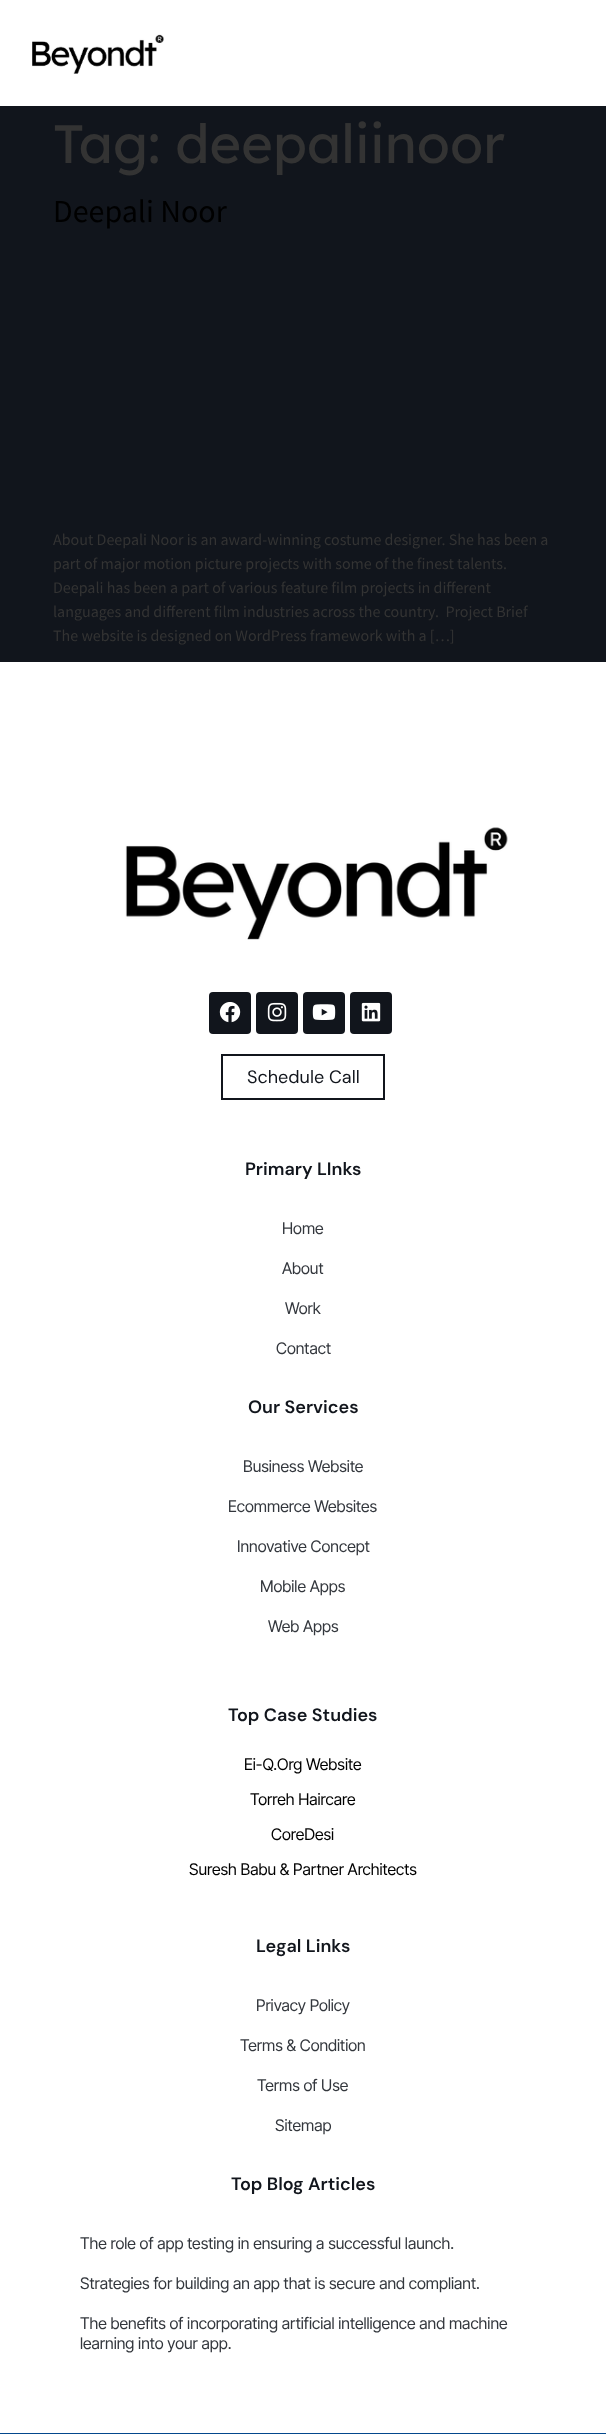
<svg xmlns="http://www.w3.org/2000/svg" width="606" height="2434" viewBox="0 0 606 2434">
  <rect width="100%" height="100%" fill="rgb(17,21,28)"/>
  <rect x="0" y="0" width="606" height="106" fill="rgb(255,255,255)"/>
  <image x="32" y="34" width="132" height="40" href="pic1.png"/>
  <text x="53" y="163" font-family="Lexend Deca" font-size="54" fill="rgb(51,51,51)">Tag: deepaliinoor</text>
  <text x="53" y="222" font-family="Source Sans Pro" font-size="32" fill="rgb(0,0,0)">Deepali Noor</text>
  <g font-family="Source Sans Pro" font-size="16" fill="rgb(51,51,51)">
    <text xml:space="preserve"><tspan x="53" y="545">About Deepali Noor is an award-winning costume designer. She has been a</tspan><tspan x="53" y="569">part of major motion picture projects with some of the finest talents.</tspan><tspan x="53" y="593">Deepali has been a part of various feature film projects in different</tspan><tspan x="53" y="617">languages and different film industries across the country.  Project Brief</tspan><tspan x="53" y="641">The website is designed on WordPress framework with a […]</tspan></text>
  </g>
  <rect x="0" y="662" width="606" height="1771" fill="rgb(255,255,255)"/>
  <image x="125" y="827" width="383" height="113" href="pic2.png"/>
  <rect x="209" y="992" width="42" height="42" rx="4" fill="rgb(17,21,28)"/>
  <image x="219" y="1002" width="22" height="21" href="pic3.png"/>
  <rect x="256" y="992" width="42" height="42" rx="4" fill="rgb(17,21,28)"/>
  <image x="267" y="1002" width="20" height="20" href="pic4.png"/>
  <rect x="303" y="992" width="42" height="42" rx="4" fill="rgb(17,21,28)"/>
  <image x="312" y="1004" width="24" height="16" href="pic5.png"/>
  <rect x="350" y="992" width="42" height="42" rx="4" fill="rgb(17,21,28)"/>
  <image x="361" y="1002" width="20" height="20" href="pic6.png"/>
  <rect x="222" y="1055" width="162" height="44" fill="none" stroke="rgb(17,21,28)" stroke-width="2"/>
  <text x="247" y="1083" font-family="DM Sans" font-size="18" fill="rgb(17,21,28)">Schedule Call</text>
  <text x="245" y="1175" font-family="DM Sans" font-size="18" font-weight="600" fill="rgb(17,21,28)">Primary LInks</text>
  <g font-family="Inter Tight" font-size="16" fill="rgb(51,55,61)">
    <text x="282" y="1234">Home</text>
    <text x="282" y="1274">About</text>
    <text x="285" y="1314">Work</text>
    <text x="276" y="1354">Contact</text>
  </g>
  <text x="248" y="1413" font-family="DM Sans" font-size="18" font-weight="600" fill="rgb(17,21,28)">Our Services</text>
  <g font-family="Inter Tight" font-size="16" fill="rgb(51,55,61)">
    <text x="243" y="1472">Business Website</text>
    <text x="228" y="1512">Ecommerce Websites</text>
    <text x="237" y="1552">Innovative Concept</text>
    <text x="260" y="1592">Mobile Apps</text>
    <text x="268" y="1632">Web Apps</text>
  </g>
  <text x="228" y="1721" font-family="DM Sans" font-size="18" font-weight="600" fill="rgb(17,21,28)">Top Case Studies</text>
  <g font-family="Inter Tight" font-size="16" fill="rgb(0,0,0)">
    <text x="244" y="1770">Ei-Q.Org Website</text>
    <text x="250" y="1805">Torreh Haircare</text>
    <text x="271" y="1840">CoreDesi</text>
    <text x="189" y="1875">Suresh Babu &amp; Partner Architects</text>
  </g>
  <text x="256" y="1952" font-family="DM Sans" font-size="18" font-weight="600" fill="rgb(17,21,28)">Legal Links</text>
  <g font-family="Inter Tight" font-size="16" fill="rgb(51,55,61)">
    <text x="256" y="2011">Privacy Policy</text>
    <text x="240" y="2051">Terms &amp; Condition</text>
    <text x="257" y="2091">Terms of Use</text>
    <text x="275" y="2131">Sitemap</text>
  </g>
  <text x="231" y="2190" font-family="DM Sans" font-size="18" font-weight="600" fill="rgb(17,21,28)">Top Blog Articles</text>
  <g font-family="Inter Tight" font-size="16" fill="rgb(51,55,61)">
    <text x="80" y="2249">The role of app testing in ensuring a successful launch.</text>
    <text x="80" y="2289">Strategies for building an app that is secure and compliant.</text>
    <text>
      <tspan x="80" y="2329">The benefits of incorporating artificial intelligence and machine</tspan>
      <tspan x="80" y="2349">learning into your app.</tspan>
    </text>
  </g>
  <rect x="0" y="2433" width="606" height="1" fill="rgb(3,71,140)"/>
</svg>
